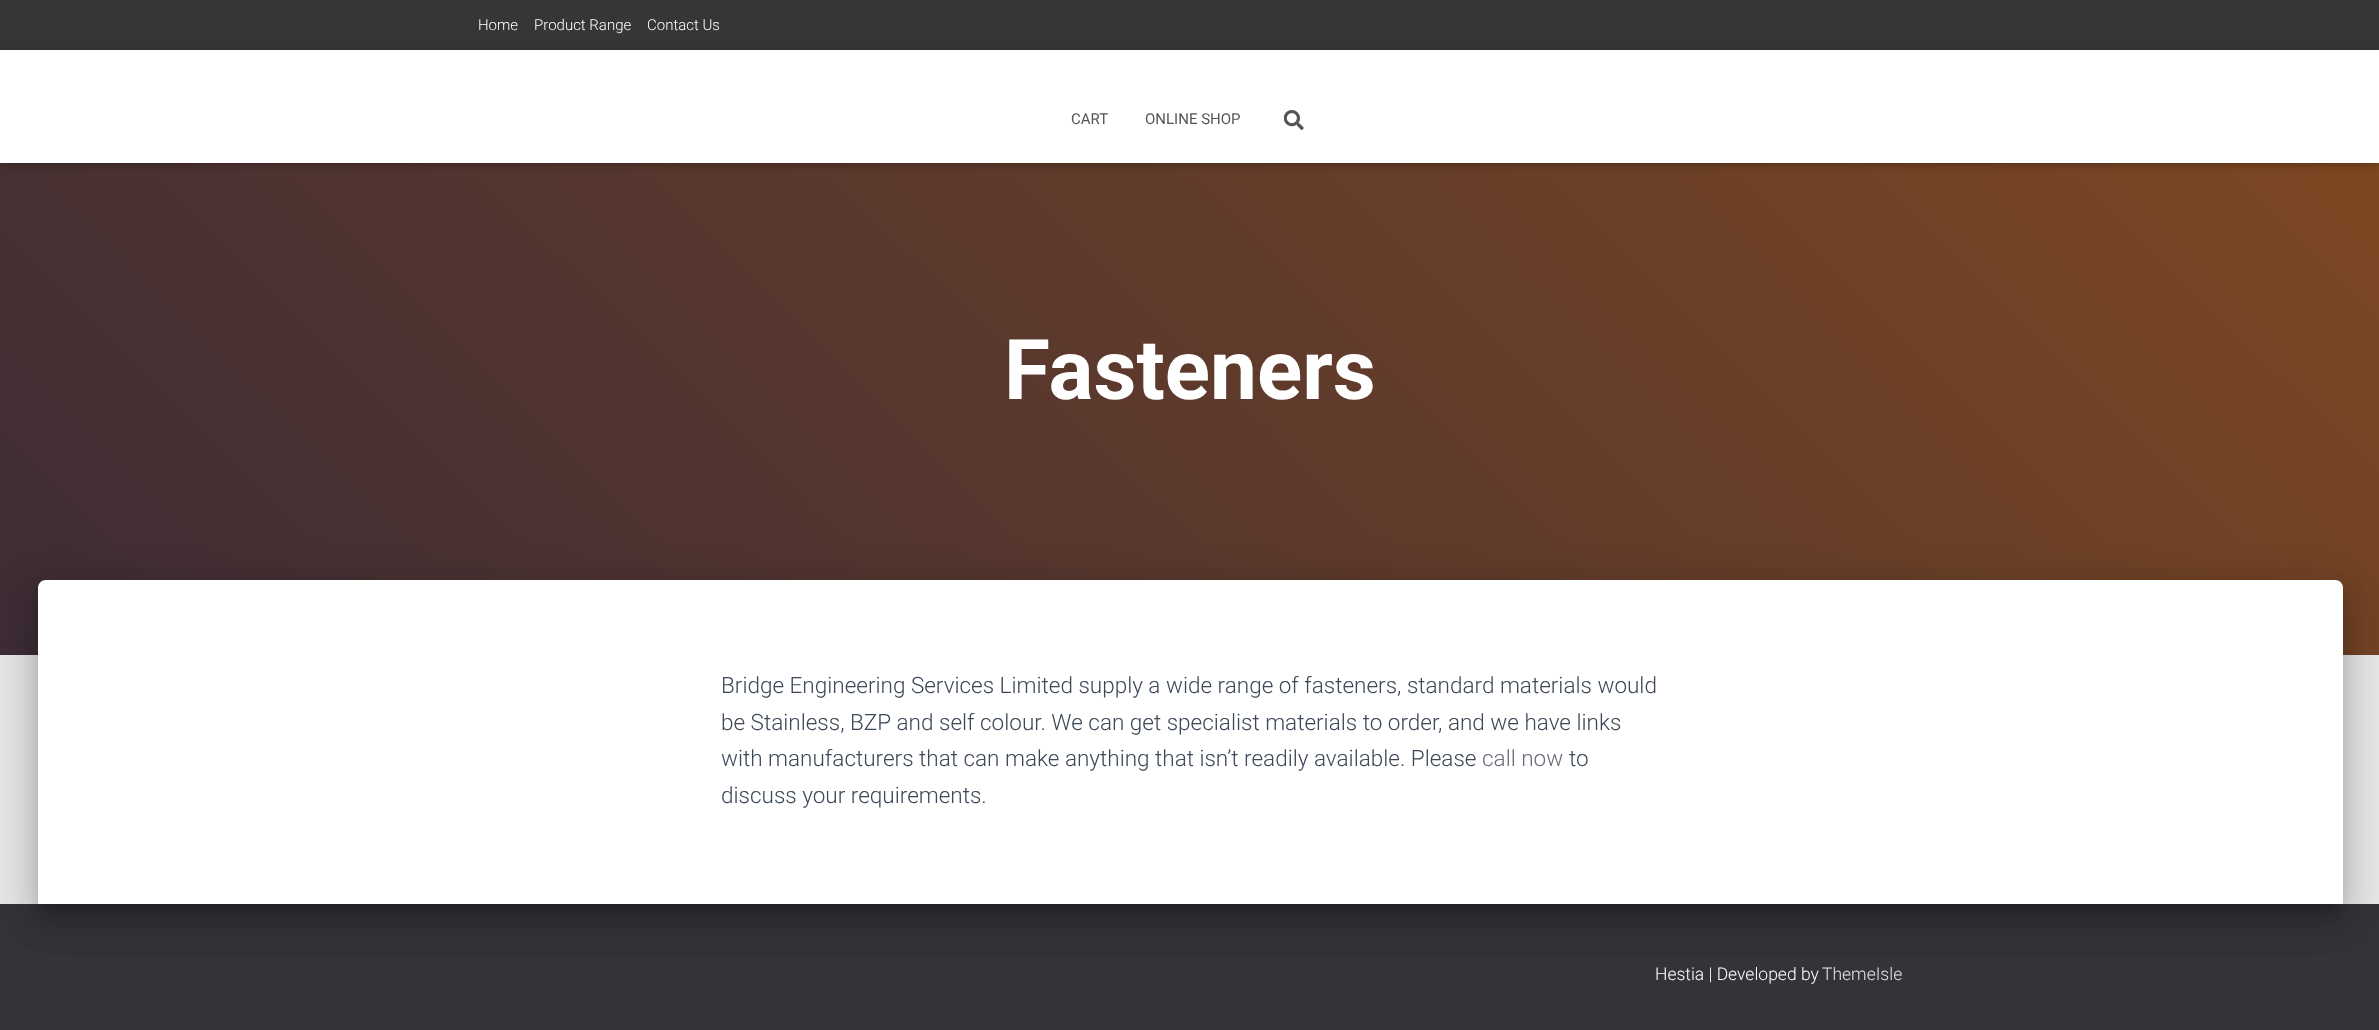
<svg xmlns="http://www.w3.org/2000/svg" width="2379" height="1030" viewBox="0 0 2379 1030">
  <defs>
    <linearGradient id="g1" gradientUnits="userSpaceOnUse" x1="444" y1="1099" x2="1936" y2="-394"><stop offset="0" stop-color="rgb(61,44,54)"/><stop offset="1" stop-color="rgb(127,72,33)"/></linearGradient>
  </defs>
  <rect width="100%" height="100%" fill="rgb(229,229,229)"/>
  <rect x="0" y="0" width="2379" height="50" fill="rgb(54,53,55)"/>
  <g font-family="Roboto" font-size="15" font-weight="300" fill="rgb(255,255,255)">
    <text x="478" y="30">Home</text>
    <text x="534" y="30">Product Range</text>
    <text x="647" y="30">Contact Us</text>
  </g>
  <rect x="0" y="163" width="2379" height="492" fill="url(#g1)"/>
  <rect x="3" y="58" width="2375" height="107" fill="rgba(0,0,0,0.1)" filter="blur(3px)"/>
  <rect x="0" y="51" width="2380" height="113" fill="rgba(0,0,0,0.12)" filter="blur(6px)"/>
  <rect x="8" y="59" width="2365" height="97" fill="rgba(0,0,0,0.42)" filter="blur(6px)"/>
  <rect x="0" y="50" width="2379" height="113" fill="rgb(255,255,255)"/>
  <g font-family="Roboto" font-size="15" fill="rgb(85,85,85)">
    <text x="1071" y="124">CART</text>
    <text x="1145" y="124">ONLINE SHOP</text>
  </g>
  <image x="1284" y="110" width="20" height="20" href="pic1.png"/>
  <text x="1004" y="399" font-family="Roboto" font-size="83.75" font-weight="bold" fill="rgb(255,255,255)">Fasteners</text>
  <rect x="0" y="904" width="2379" height="126" fill="rgb(50,52,55)"/>
  <rect x="44" y="596" width="2292" height="312" rx="1" fill="rgba(0,0,0,0.2)" filter="blur(6px)"/>
  <rect x="31" y="581" width="2318" height="337" rx="14" fill="rgba(0,0,0,0.12)" filter="blur(19px)"/>
  <rect x="35" y="598" width="2310" height="328" rx="10" fill="rgba(0,0,0,0.14)" filter="blur(15px)"/>
  <path d="M46 580H2335C2339.5 580 2343 583.5 2343 588V904H38V588C38 583.5 41.5 580 46 580Z" fill="rgb(255,255,255)"/>
  <g font-family="Roboto" font-size="22.5" font-weight="300" fill="rgb(60,72,88)">
    <text>
      <tspan x="721" y="693">Bridge Engineering Services Limited supply a wide range of fasteners, standard materials would</tspan>
      <tspan x="721" y="730">be Stainless, BZP and self colour. We can get specialist materials to order, and we have links</tspan>
      <tspan x="721" y="766">with manufacturers that can make anything that isn’t readily available. Please</tspan>
    </text>
  </g>
  <text x="1482" y="766" font-family="Roboto" font-size="22.5" font-weight="300" fill="rgb(106,106,124)">call now</text>
  <g font-family="Roboto" font-size="22.5" font-weight="300" fill="rgb(60,72,88)">
    <text x="1569" y="766">to</text>
    <text x="721" y="803">discuss your requirements.</text>
  </g>
  <text x="1655" y="980" font-family="Roboto" font-size="17.5" font-weight="300" fill="rgb(255,255,255)">Hestia | Developed by</text>
  <text x="1822" y="980" font-family="Roboto" font-size="17.5" font-weight="300" fill="rgb(226,227,227)">ThemeIsle</text>
</svg>
